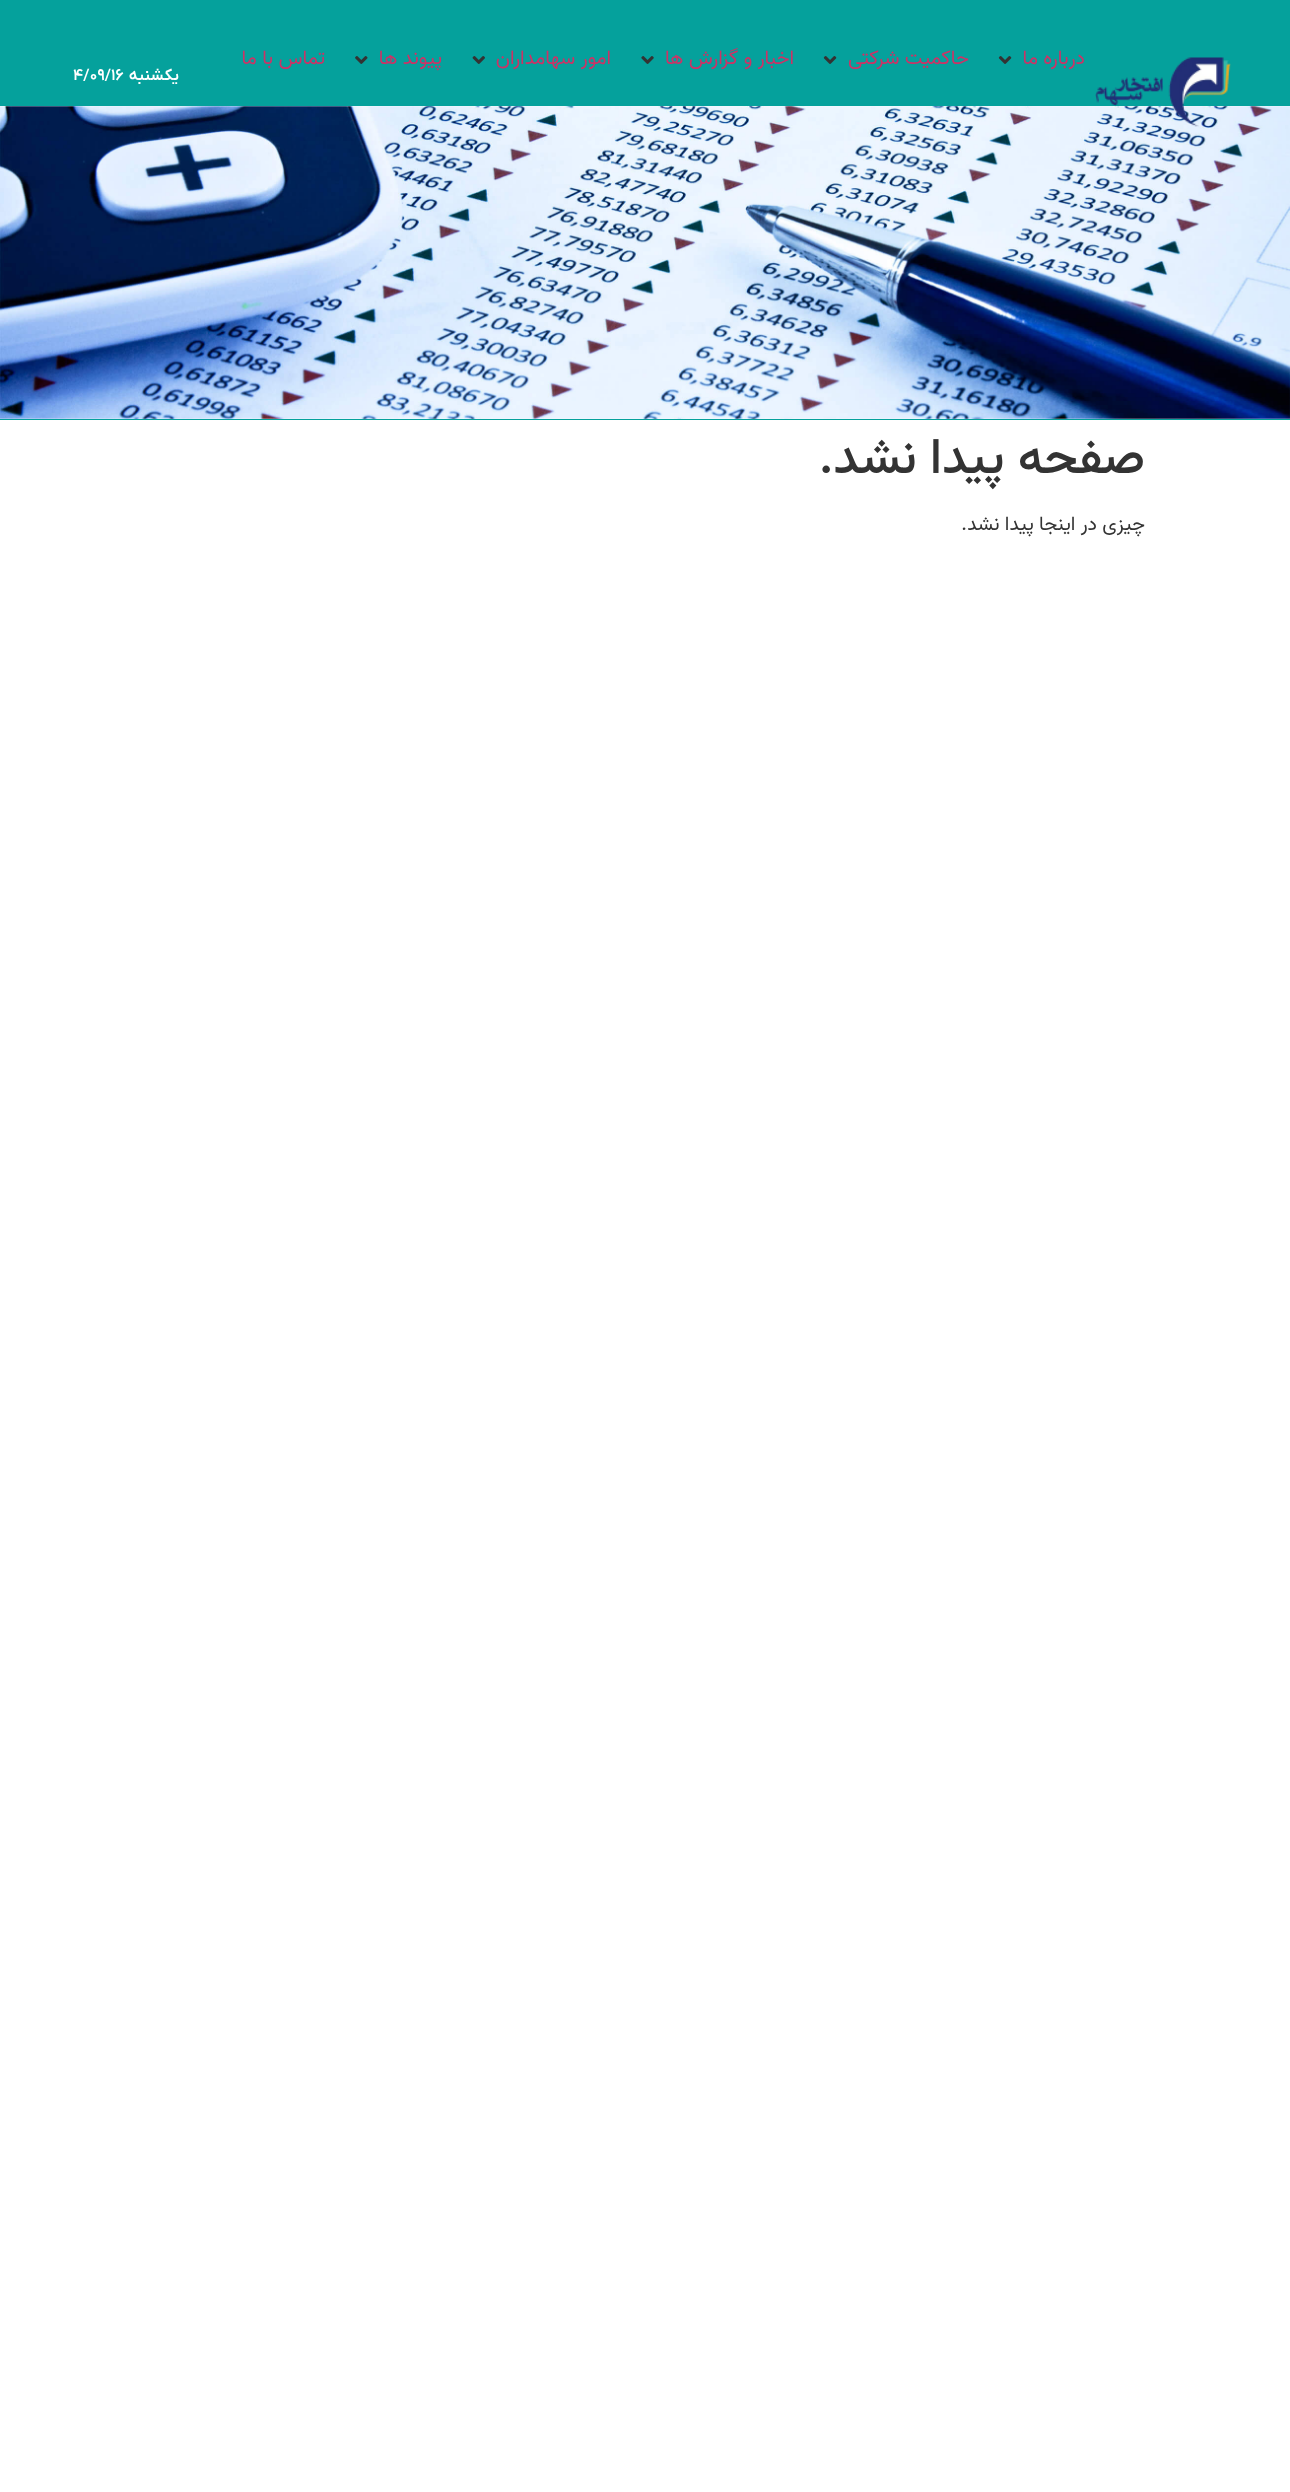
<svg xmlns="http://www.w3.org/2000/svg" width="1290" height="2492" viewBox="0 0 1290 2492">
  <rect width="100%" height="100%" fill="rgb(255,255,255)"/>
  <rect x="0" y="0" width="1290" height="106" fill="rgb(5,161,156)"/>
  <image x="0" y="106" width="1290" height="313" href="pic6.png"/>
  <image x="1095" y="57" width="136" height="70" href="pic1.png"/>
  <text x="1085" y="64" font-family="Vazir" font-size="20" direction="rtl" fill="rgb(204,51,102)">درباره ما</text>
  <image x="998" y="56" width="14" height="8" href="pic2.png"/>
  <text x="969" y="64" font-family="Vazir" font-size="20" direction="rtl" fill="rgb(204,51,102)">حاکمیت شرکتی</text>
  <image x="823" y="56" width="14" height="8" href="pic2.png"/>
  <text x="794" y="64" font-family="Vazir" font-size="20" direction="rtl" fill="rgb(204,51,102)">اخبار و گزارش ها</text>
  <image x="641" y="56" width="13" height="8" href="pic3.png"/>
  <text x="611" y="64" font-family="Vazir" font-size="20" direction="rtl" fill="rgb(204,51,102)">امور سهامداران</text>
  <image x="472" y="56" width="13" height="8" href="pic4.png"/>
  <text x="442" y="64" font-family="Vazir" font-size="20" direction="rtl" fill="rgb(204,51,102)">پیوند ها</text>
  <image x="355" y="56" width="13" height="8" href="pic5.png"/>
  <text x="325" y="64" font-family="Vazir" font-size="20" direction="rtl" fill="rgb(204,51,102)">تماس با ما</text>
  <text x="179" y="80" font-family="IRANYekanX" font-size="16" font-weight="600" direction="rtl" fill="rgb(255,255,255)">یکشنبه</text>
  <text x="73" y="80" font-family="IRANYekanX" font-size="16" font-weight="600" fill="rgb(255,255,255)">۴/۰۹/۱۶</text>
  <rect x="0" y="419" width="1290" height="1" fill="rgb(5,161,156)"/>
  <text x="1145" y="473" font-family="Vazirmatn" font-size="50" font-weight="500" direction="rtl" fill="rgb(51,51,51)">صفحه پیدا نشد.</text>
  <text x="1145" y="530" font-family="Vazir" font-size="20" direction="rtl" fill="rgb(51,51,51)">چیزی در اینجا پیدا نشد.</text>
</svg>
